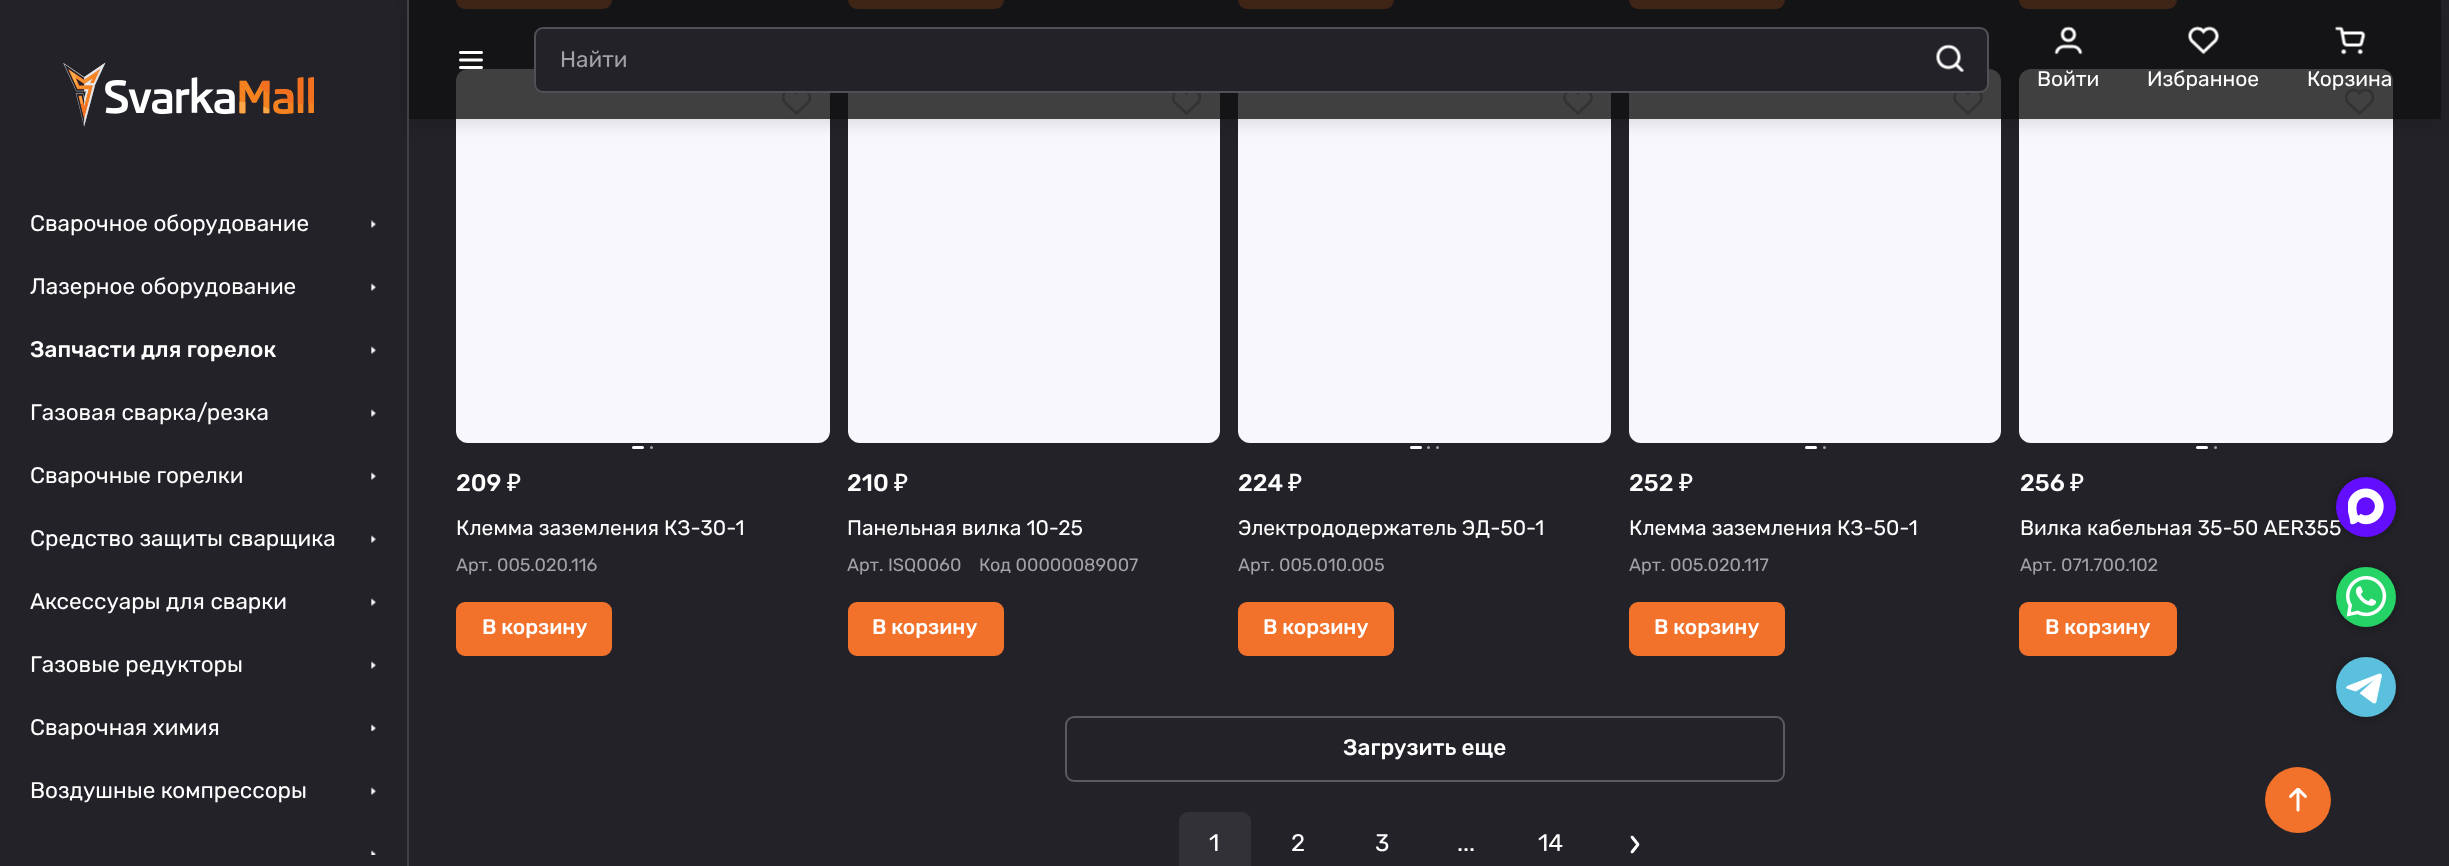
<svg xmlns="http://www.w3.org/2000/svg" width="2449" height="866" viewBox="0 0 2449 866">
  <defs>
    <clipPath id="clip1"><path d="M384 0H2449V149H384ZM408 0H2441V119H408Z" clip-rule="evenodd"/></clipPath>
  </defs>
  <rect width="100%" height="100%" fill="rgb(34,34,40)"/>
  <rect x="457" y="-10" width="154" height="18" rx="8" fill="rgb(242,114,44)" stroke="rgb(242,114,44)" stroke-width="2"/>
  <rect x="849" y="-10" width="154" height="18" rx="8" fill="rgb(242,114,44)" stroke="rgb(242,114,44)" stroke-width="2"/>
  <rect x="1239" y="-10" width="154" height="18" rx="8" fill="rgb(242,114,44)" stroke="rgb(242,114,44)" stroke-width="2"/>
  <rect x="1630" y="-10" width="154" height="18" rx="8" fill="rgb(242,114,44)" stroke="rgb(242,114,44)" stroke-width="2"/>
  <rect x="2020" y="-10" width="156" height="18" rx="8" fill="rgb(242,114,44)" stroke="rgb(242,114,44)" stroke-width="2"/>
  <rect x="456" y="69" width="374" height="374" rx="12" fill="rgb(248,248,252)"/>
  <image x="780" y="93" width="33" height="24" href="pic11.png"/>
  <image x="782" y="93" width="30" height="23" href="pic12.png"/>
  <rect x="848" y="69" width="372" height="374" rx="12" fill="rgb(248,248,252)"/>
  <image x="1170" y="93" width="33" height="24" href="pic11.png"/>
  <image x="1172" y="93" width="30" height="23" href="pic12.png"/>
  <rect x="1238" y="69" width="373" height="374" rx="12" fill="rgb(248,248,252)"/>
  <image x="1562" y="93" width="32" height="24" href="pic13.png"/>
  <image x="1563" y="93" width="30" height="23" href="pic14.png"/>
  <rect x="1629" y="69" width="372" height="374" rx="12" fill="rgb(248,248,252)"/>
  <image x="1952" y="92" width="32" height="25" href="pic15.png"/>
  <image x="1953" y="92" width="30" height="24" href="pic16.png"/>
  <rect x="2019" y="69" width="374" height="374" rx="12" fill="rgb(248,248,252)"/>
  <image x="2343" y="87" width="33" height="30" href="pic17.png"/>
  <image x="2345" y="88" width="30" height="28" href="pic18.png"/>
  <rect x="409" y="0" width="2032" height="119" fill="rgba(18,18,18,0.8)"/>
  <g clip-path="url(#clip1)">
    <rect x="408" y="6" width="2033" height="119" fill="rgba(0,0,0,0.1)" filter="blur(7.5px)"/>
  </g>
  <rect x="407" y="0" width="2" height="866" fill="rgb(63,63,69)"/>
  <image x="63" y="62" width="251" height="65" href="pic1.png"/>
  <text x="30" y="231" font-family="'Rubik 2'" font-size="22.5" font-weight="300" fill="rgb(255,255,255)">Сварочное оборудование</text>
  <image x="371" y="220" width="6" height="8" href="pic2.png"/>
  <text x="30" y="294" font-family="'Rubik 2'" font-size="22.5" font-weight="300" fill="rgb(255,255,255)">Лазерное оборудование</text>
  <image x="371" y="283" width="6" height="8" href="pic3.png"/>
  <text x="30" y="357" font-family="Rubik" font-size="22.5" font-weight="300" fill="rgb(255,255,255)">Запчасти для горелок</text>
  <image x="371" y="346" width="6" height="8" href="pic3.png"/>
  <text x="30" y="420" font-family="'Rubik 2'" font-size="22.5" font-weight="300" fill="rgb(255,255,255)">Газовая сварка/резка</text>
  <image x="371" y="409" width="6" height="8" href="pic3.png"/>
  <text x="30" y="483" font-family="'Rubik 2'" font-size="22.5" font-weight="300" fill="rgb(255,255,255)">Сварочные горелки</text>
  <image x="371" y="472" width="6" height="8" href="pic3.png"/>
  <text x="30" y="546" font-family="'Rubik 2'" font-size="22.5" font-weight="300" fill="rgb(255,255,255)">Средство защиты сварщика</text>
  <image x="371" y="535" width="6" height="8" href="pic3.png"/>
  <text x="30" y="609" font-family="'Rubik 2'" font-size="22.5" font-weight="300" fill="rgb(255,255,255)">Аксессуары для сварки</text>
  <image x="371" y="598" width="6" height="8" href="pic3.png"/>
  <text x="30" y="672" font-family="'Rubik 2'" font-size="22.5" font-weight="300" fill="rgb(255,255,255)">Газовые редукторы</text>
  <image x="371" y="661" width="6" height="8" href="pic3.png"/>
  <text x="30" y="735" font-family="'Rubik 2'" font-size="22.5" font-weight="300" fill="rgb(255,255,255)">Сварочная химия</text>
  <image x="371" y="724" width="6" height="7" href="pic4.png"/>
  <text x="30" y="798" font-family="'Rubik 2'" font-size="22.5" font-weight="300" fill="rgb(255,255,255)">Воздушные компрессоры</text>
  <image x="371" y="787" width="6" height="8" href="pic3.png"/>
  <image x="371" y="850" width="6" height="5" href="pic5.png"/>
  <image x="459" y="51" width="24" height="18" href="pic6.png"/>
  <rect x="535" y="28" width="1453" height="64" rx="8" fill="rgb(34,34,40)" stroke="rgb(80,80,86)" stroke-width="2"/>
  <text x="560" y="67" font-family="'Rubik 2'" font-size="22.5" font-weight="300" fill="rgb(161,161,167)">Найти</text>
  <image x="1936" y="44" width="28" height="28" href="pic7.png"/>
  <image x="2054" y="26" width="29" height="29" href="pic8.png"/>
  <text x="2037" y="86" font-family="'Rubik 2'" font-size="21" font-weight="300" fill="rgb(255,255,255)">Войти</text>
  <image x="2188" y="26" width="31" height="29" href="pic9.png"/>
  <text x="2147" y="86" font-family="'Rubik 2'" font-size="21" font-weight="300" fill="rgb(255,255,255)">Избранное</text>
  <image x="2335" y="26" width="31" height="29" href="pic10.png"/>
  <text x="2307" y="86" font-family="'Rubik 2'" font-size="21" font-weight="300" fill="rgb(255,255,255)">Корзина</text>
  <rect x="632" y="446" width="12" height="3" rx="1.5" fill="rgb(255,255,255)"/>
  <circle cx="651.5" cy="447.5" r="1.5" fill="rgb(161,161,167)"/>
  <text x="456" y="491" font-family="Rubik" font-size="24" font-weight="300" fill="rgb(255,255,255)">209</text>
  <text x="507" y="491" font-family="Noto Sans" font-size="24" font-weight="500" fill="rgb(255,255,255)">₽</text>
  <text x="456" y="535" font-family="'Rubik 2'" font-size="21" font-weight="300" fill="rgb(255,255,255)">Клемма заземления КЗ-30-1</text>
  <text x="456" y="571" font-family="'Rubik 2'" font-size="18" font-weight="300" fill="rgb(161,161,167)">Арт. 005.020.116</text>
  <rect x="457" y="603" width="154" height="52" rx="8" fill="rgb(242,114,44)" stroke="rgb(242,114,44)" stroke-width="2"/>
  <text x="482" y="634" font-family="Rubik" font-size="21" font-weight="300" fill="rgb(255,255,255)">В корзину</text>
  <text x="847" y="491" font-family="Rubik" font-size="24" font-weight="300" fill="rgb(255,255,255)">210</text>
  <text x="894" y="491" font-family="Noto Sans" font-size="24" font-weight="500" fill="rgb(255,255,255)">₽</text>
  <text x="847" y="535" font-family="'Rubik 2'" font-size="21" font-weight="300" fill="rgb(255,255,255)">Панельная вилка 10-25</text>
  <g font-family="'Rubik 2'" font-size="18" font-weight="300" fill="rgb(161,161,167)">
    <text x="847" y="571">Арт. ISQ0060</text>
    <text x="979" y="571">Код 00000089007</text>
  </g>
  <rect x="849" y="603" width="154" height="52" rx="8" fill="rgb(242,114,44)" stroke="rgb(242,114,44)" stroke-width="2"/>
  <text x="872" y="634" font-family="Rubik" font-size="21" font-weight="300" fill="rgb(255,255,255)">В корзину</text>
  <rect x="1410" y="446" width="12" height="3" rx="1.5" fill="rgb(255,255,255)"/>
  <circle cx="1428.5" cy="447.5" r="1.5" fill="rgb(161,161,167)"/>
  <circle cx="1437.5" cy="447.5" r="1.5" fill="rgb(161,161,167)"/>
  <text x="1238" y="491" font-family="Rubik" font-size="24" font-weight="300" fill="rgb(255,255,255)">224</text>
  <text x="1288" y="491" font-family="Noto Sans" font-size="24" font-weight="500" fill="rgb(255,255,255)">₽</text>
  <text x="1238" y="535" font-family="'Rubik 2'" font-size="21" font-weight="300" fill="rgb(255,255,255)">Электрододержатель ЭД-50-1</text>
  <text x="1238" y="571" font-family="'Rubik 2'" font-size="18" font-weight="300" fill="rgb(161,161,167)">Арт. 005.010.005</text>
  <rect x="1239" y="603" width="154" height="52" rx="8" fill="rgb(242,114,44)" stroke="rgb(242,114,44)" stroke-width="2"/>
  <text x="1263" y="634" font-family="Rubik" font-size="21" font-weight="300" fill="rgb(255,255,255)">В корзину</text>
  <rect x="1805" y="446" width="12" height="3" rx="1.5" fill="rgb(255,255,255)"/>
  <circle cx="1824.5" cy="447.5" r="1.5" fill="rgb(161,161,167)"/>
  <text x="1629" y="491" font-family="Rubik" font-size="24" font-weight="300" fill="rgb(255,255,255)">252</text>
  <text x="1679" y="491" font-family="Noto Sans" font-size="24" font-weight="500" fill="rgb(255,255,255)">₽</text>
  <text x="1629" y="535" font-family="'Rubik 2'" font-size="21" font-weight="300" fill="rgb(255,255,255)">Клемма заземления КЗ-50-1</text>
  <text x="1629" y="571" font-family="'Rubik 2'" font-size="18" font-weight="300" fill="rgb(161,161,167)">Арт. 005.020.117</text>
  <rect x="1630" y="603" width="154" height="52" rx="8" fill="rgb(242,114,44)" stroke="rgb(242,114,44)" stroke-width="2"/>
  <text x="1654" y="634" font-family="Rubik" font-size="21" font-weight="300" fill="rgb(255,255,255)">В корзину</text>
  <rect x="2196" y="446" width="12" height="3" rx="1.5" fill="rgb(255,255,255)"/>
  <circle cx="2215.5" cy="447.5" r="1.5" fill="rgb(161,161,167)"/>
  <text x="2020" y="491" font-family="Rubik" font-size="24" font-weight="300" fill="rgb(255,255,255)">256</text>
  <text x="2070" y="491" font-family="Noto Sans" font-size="24" font-weight="500" fill="rgb(255,255,255)">₽</text>
  <text x="2020" y="535" font-family="'Rubik 2'" font-size="21" font-weight="300" fill="rgb(255,255,255)">Вилка кабельная 35-50 AER355</text>
  <text x="2020" y="571" font-family="'Rubik 2'" font-size="18" font-weight="300" fill="rgb(161,161,167)">Арт. 071.700.102</text>
  <rect x="2020" y="603" width="156" height="52" rx="8" fill="rgb(242,114,44)" stroke="rgb(242,114,44)" stroke-width="2"/>
  <text x="2045" y="634" font-family="Rubik" font-size="21" font-weight="300" fill="rgb(255,255,255)">В корзину</text>
  <rect x="1066" y="717" width="718" height="64" rx="8" fill="none" stroke="rgb(90,90,96)" stroke-width="2"/>
  <text x="1343" y="755" font-family="Rubik" font-size="22.5" font-weight="300" fill="rgb(255,255,255)">Загрузить еще</text>
  <rect x="1179" y="812" width="72" height="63" rx="9" fill="rgb(49,49,55)"/>
  <g font-family="'Rubik 2'" font-size="24" font-weight="300" fill="rgb(255,255,255)">
    <text x="1209" y="851">1</text>
    <text x="1291" y="851">2</text>
    <text x="1375" y="851">3</text>
    <text x="1457" y="851">...</text>
    <text x="1538" y="851">14</text>
  </g>
  <image x="1630" y="835" width="10" height="19" href="pic19.png"/>
  <rect x="2336" y="477" width="60" height="60" rx="30" fill="rgba(0,0,0,0.3)" filter="blur(5px)"/>
  <circle cx="2366" cy="507" r="30" fill="rgb(99,14,255)"/>
  <image x="2348" y="488" width="36" height="37" href="pic20.png"/>
  <rect x="2336" y="567" width="60" height="60" rx="30" fill="rgba(0,0,0,0.3)" filter="blur(5px)"/>
  <circle cx="2366" cy="597" r="30" fill="rgb(37,211,102)"/>
  <image x="2346" y="576" width="41" height="41" href="pic21.png"/>
  <rect x="2336" y="657" width="60" height="60" rx="30" fill="rgba(0,0,0,0.3)" filter="blur(5px)"/>
  <circle cx="2366" cy="687" r="30" fill="rgb(91,192,222)"/>
  <image x="2346" y="673" width="36" height="31" href="pic22.png"/>
  <circle cx="2298" cy="800" r="33" fill="rgb(242,114,44)"/>
  <image x="2289" y="788" width="18" height="24" href="pic23.png"/>
</svg>
